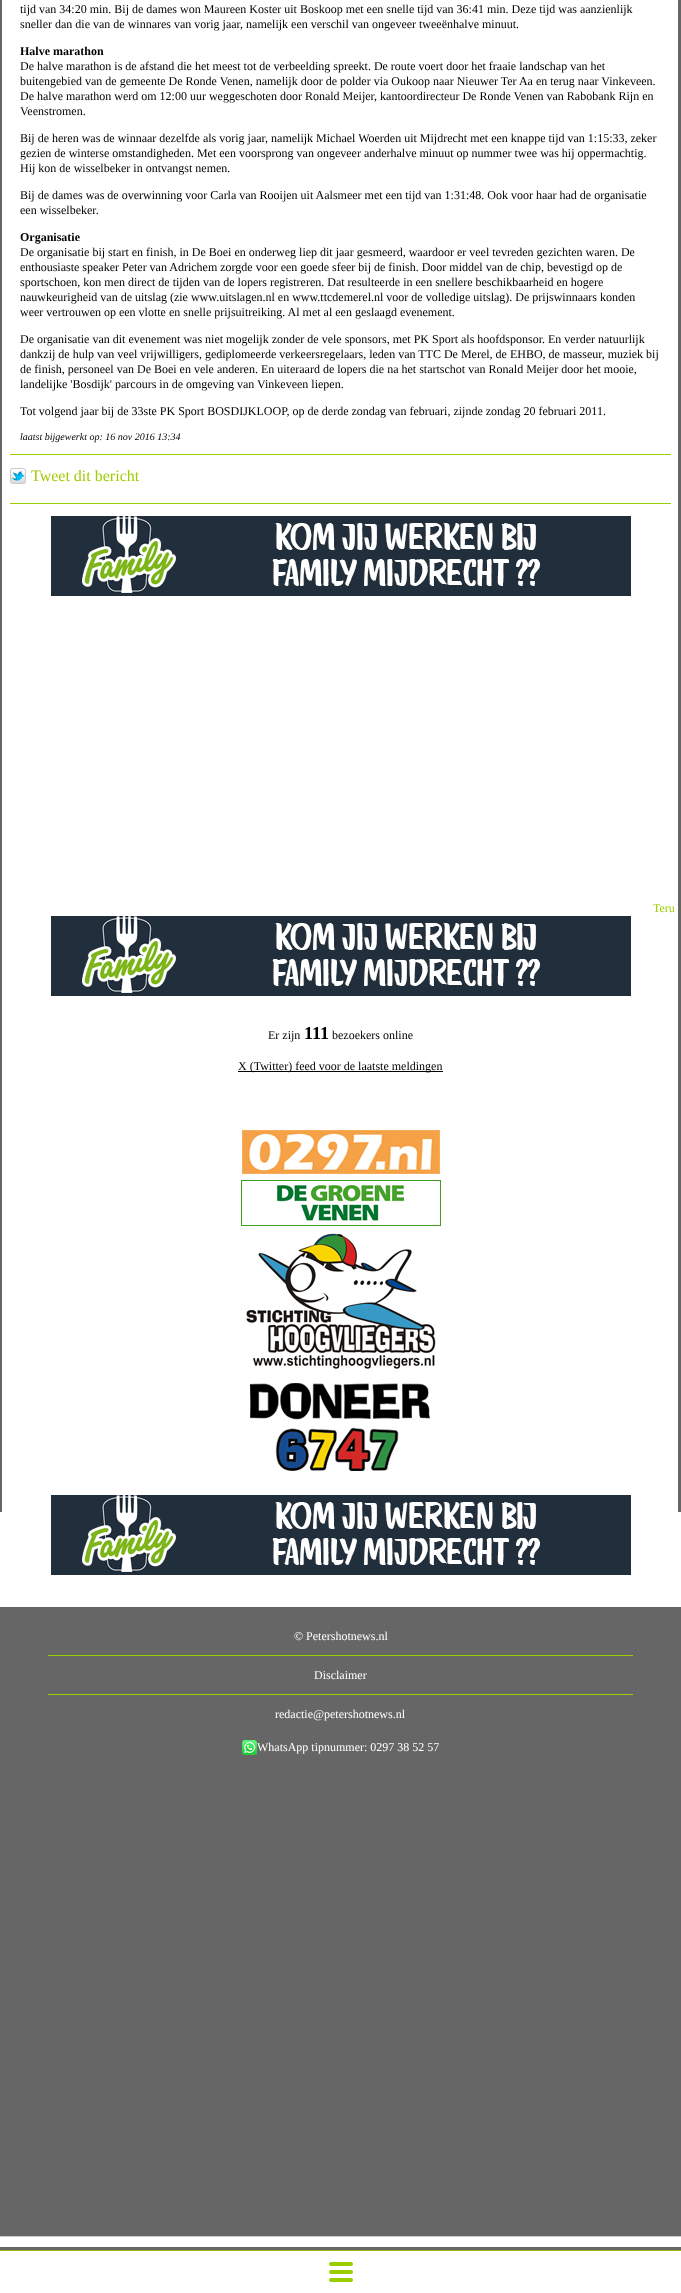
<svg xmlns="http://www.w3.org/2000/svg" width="681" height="2293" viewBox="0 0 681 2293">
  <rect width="100%" height="100%" fill="rgb(255,255,255)"/>
  <rect x="0" y="0" width="2" height="1512" fill="rgb(102,102,102)"/>
  <g font-family="Liberation Serif" font-size="12" fill="rgb(0,0,0)">
    <text>
      <tspan x="20" y="13">tijd van 34:20 min. Bij de dames won Maureen Koster uit Boskoop met een snelle tijd van 36:41 min. Deze tijd was aanzienlijk</tspan>
      <tspan x="20" y="28">sneller dan die van de winnares van vorig jaar, namelijk een verschil van ongeveer tweeënhalve minuut.</tspan>
    </text>
  </g>
  <text x="20" y="55" font-family="Liberation Serif" font-size="12" font-weight="bold" fill="rgb(0,0,0)">Halve marathon</text>
  <g font-family="Liberation Serif" font-size="12" fill="rgb(0,0,0)">
    <text>
      <tspan x="20" y="70">De halve marathon is de afstand die het meest tot de verbeelding spreekt. De route voert door het fraaie landschap van het</tspan>
      <tspan x="20" y="85">buitengebied van de gemeente De Ronde Venen, namelijk door de polder via Oukoop naar Nieuwer Ter Aa en terug naar Vinkeveen.</tspan>
      <tspan x="20" y="100">De halve marathon werd om 12:00 uur weggeschoten door Ronald Meijer, kantoordirecteur De Ronde Venen van Rabobank Rijn en</tspan>
      <tspan x="20" y="115">Veenstromen.</tspan>
    </text>
    <text>
      <tspan x="20" y="142">Bij de heren was de winnaar dezelfde als vorig jaar, namelijk Michael Woerden uit Mijdrecht met een knappe tijd van 1:15:33, zeker</tspan>
      <tspan x="20" y="157">gezien de winterse omstandigheden. Met een voorsprong van ongeveer anderhalve minuut op nummer twee was hij oppermachtig.</tspan>
      <tspan x="20" y="172">Hij kon de wisselbeker in ontvangst nemen.</tspan>
    </text>
    <text>
      <tspan x="20" y="199">Bij de dames was de overwinning voor Carla van Rooijen uit Aalsmeer met een tijd van 1:31:48. Ook voor haar had de organisatie</tspan>
      <tspan x="20" y="214">een wisselbeker.</tspan>
    </text>
  </g>
  <text x="20" y="241" font-family="Liberation Serif" font-size="12" font-weight="bold" fill="rgb(0,0,0)">Organisatie</text>
  <g font-family="Liberation Serif" font-size="12" fill="rgb(0,0,0)">
    <text>
      <tspan x="20" y="256">De organisatie bij start en finish, in De Boei en onderweg liep dit jaar gesmeerd, waardoor er veel tevreden gezichten waren. De</tspan>
      <tspan x="20" y="271">enthousiaste speaker Peter van Adrichem zorgde voor een goede sfeer bij de finish. Door middel van de chip, bevestigd op de</tspan>
      <tspan x="20" y="286">sportschoen, kon men direct de tijden van de lopers registreren. Dat resulteerde in een snellere beschikbaarheid en hogere</tspan>
      <tspan x="20" y="301">nauwkeurigheid van de uitslag (zie www.uitslagen.nl en www.ttcdemerel.nl voor de volledige uitslag). De prijswinnaars konden</tspan>
      <tspan x="20" y="316">weer vertrouwen op een vlotte en snelle prijsuitreiking. Al met al een geslaagd evenement.</tspan>
    </text>
    <text>
      <tspan x="20" y="343">De organisatie van dit evenement was niet mogelijk zonder de vele sponsors, met PK Sport als hoofdsponsor. En verder natuurlijk</tspan>
      <tspan x="20" y="358">dankzij de hulp van veel vrijwilligers, gediplomeerde verkeersregelaars, leden van TTC De Merel, de EHBO, de masseur, muziek bij</tspan>
      <tspan x="20" y="373">de finish, personeel van De Boei en vele anderen. En uiteraard de lopers die na het startschot van Ronald Meijer door het mooie,</tspan>
      <tspan x="20" y="388">landelijke 'Bosdijk' parcours in de omgeving van Vinkeveen liepen.</tspan>
    </text>
    <text x="20" y="415">Tot volgend jaar bij de 33ste PK Sport BOSDIJKLOOP, op de derde zondag van februari, zijnde zondag 20 februari 2011.</text>
  </g>
  <text x="20" y="440" font-family="Liberation Serif" font-size="10" font-style="italic" fill="rgb(0,0,0)">laatst bijgewerkt op: 16 nov 2016 13:34</text>
  <rect x="10" y="454" width="661" height="1" fill="rgb(156,205,0)"/>
  <image x="10" y="468" width="16" height="16" href="pic1.png"/>
  <text x="31" y="481" font-family="Liberation Serif" font-size="16" fill="rgb(156,205,0)">Tweet dit bericht</text>
  <rect x="10" y="503" width="661" height="1" fill="rgb(156,205,0)"/>
  <image x="51" y="516" width="580" height="80" href="pic2.png"/>
  <text x="653" y="912" font-family="Liberation Serif" font-size="12" fill="rgb(156,205,0)">Teru</text>
  <image x="51" y="916" width="580" height="80" href="pic2.png"/>
  <text x="268" y="1039" font-family="Liberation Serif" font-size="12" fill="rgb(0,0,0)">Er zijn</text>
  <text x="304" y="1039" font-family="Liberation Serif" font-size="18" font-weight="bold" fill="rgb(0,0,0)">111</text>
  <text x="332" y="1039" font-family="Liberation Serif" font-size="12" fill="rgb(0,0,0)">bezoekers online</text>
  <rect x="238" y="1071" width="205" height="1" fill="rgb(0,0,0)"/>
  <text x="238" y="1070" font-family="Liberation Serif" font-size="12" fill="rgb(0,0,0)">X (Twitter) feed voor de laatste meldingen</text>
  <image x="242" y="1129" width="198" height="45" href="pic3.png"/>
  <image x="241" y="1180" width="200" height="46" href="pic4.png"/>
  <image x="246" y="1233" width="190" height="238" href="pic5.png"/>
  <image x="51" y="1495" width="580" height="80" href="pic2.png"/>
  <rect x="0" y="2250" width="681" height="1" fill="rgb(150,189,13)"/>
  <rect x="329" y="2262" width="24" height="4" rx="2" fill="rgb(156,205,0)"/>
  <rect x="329" y="2270" width="24" height="4" rx="2" fill="rgb(156,205,0)"/>
  <rect x="329" y="2278" width="24" height="4" rx="2" fill="rgb(156,205,0)"/>
  <rect x="678" y="0" width="3" height="1512" fill="rgb(102,102,102)"/>
  <rect x="0" y="1607" width="681" height="643" fill="rgb(102,102,102)"/>
  <text x="294" y="1640" font-family="Liberation Serif" font-size="12" fill="rgb(255,255,255)">© Petershotnews.nl</text>
  <rect x="48" y="1655" width="585" height="1" fill="rgb(156,205,0)"/>
  <text x="314" y="1679" font-family="Liberation Serif" font-size="12" fill="rgb(255,255,255)">Disclaimer</text>
  <rect x="48" y="1694" width="585" height="1" fill="rgb(156,205,0)"/>
  <text x="275" y="1718" font-family="Liberation Serif" font-size="12" fill="rgb(255,255,255)">redactie@petershotnews.nl</text>
  <image x="242" y="1740" width="15" height="15" href="pic6.png"/>
  <text x="257" y="1751" font-family="Liberation Serif" font-size="12" fill="rgb(255,255,255)">WhatsApp tipnummer: 0297 38 52 57</text>
  <rect x="0" y="2237" width="681" height="10" fill="rgb(255,255,255)"/>
  <rect x="0" y="2236" width="681" height="1" fill="rgb(204,204,204)"/>
</svg>
